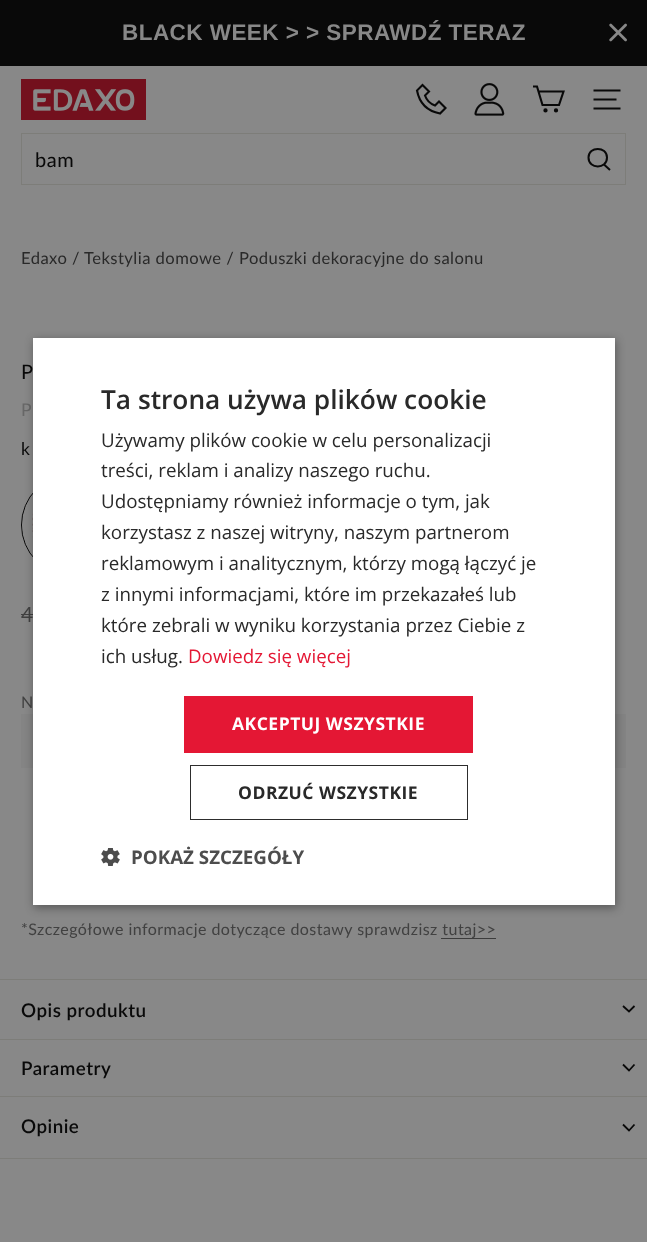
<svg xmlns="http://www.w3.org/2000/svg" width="647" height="1242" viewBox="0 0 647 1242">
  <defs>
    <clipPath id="clip1"><rect x="23" y="475" width="100" height="100" rx="50"/></clipPath>
  </defs>
  <rect width="100%" height="100%" fill="rgb(136,136,136)"/>
  <rect x="0" y="0" width="647" height="66" fill="rgb(9,9,9)"/>
  <text x="122" y="40" font-family="Liberation Sans" font-size="22.5" font-weight="bold" letter-spacing="0.45" fill="rgb(136,136,136)">BLACK WEEK &gt; &gt; SPRAWDŹ TERAZ</text>
  <image x="609" y="23" width="18" height="19" href="pic1.png"/>
  <image x="21" y="79" width="125" height="41" href="pic2.png"/>
  <path d="M422.5 85L429 91.5L425 95.5C426.5 100 429.5 103.5 435 105.5L439 101.5L445.5 108L440 113.5C427 111 419.5 103.5 417 90.5Z" fill="none" stroke="rgb(9,9,9)" stroke-width="2.1"/>
  <image x="474" y="83" width="31" height="33" href="pic3.png"/>
  <path d="M538.5 91.5H563.5L559 105H542.5L537 86.5H533" fill="none" stroke="rgb(9,9,9)" stroke-width="2.1"/>
  <circle cx="545.5" cy="110.4" r="1.1" fill="none" stroke="rgb(9,9,9)" stroke-width="2.1"/>
  <circle cx="556" cy="110.4" r="1.1" fill="none" stroke="rgb(9,9,9)" stroke-width="2.1"/>
  <path d="M593.5 90.5H620.5M593.5 99.5H616.5M593.5 108.5H620.5" fill="none" stroke="rgb(9,9,9)" stroke-width="2.1"/>
  <rect x="21.5" y="133.5" width="604" height="51" fill="none" stroke="rgb(125,125,121)"/>
  <text x="35" y="167" font-family="Lato" font-size="20" letter-spacing="0.5" fill="rgb(9,9,9)">bam</text>
  <path d="M607 157.5C607 169.5 588.5 169.5 588.5 157.5C588.5 146 607 146 607 157.5ZM610 170L604 164.5" fill="none" stroke="rgb(9,9,9)" stroke-width="2"/>
  <g font-family="Lato" font-size="16.6" letter-spacing="0.45" fill="rgb(41,41,41)">
    <text x="21" y="264">Edaxo /</text>
    <text x="84" y="264">Tekstylia domowe / Poduszki dekoracyjne do salonu</text>
  </g>
  <text x="21" y="379" font-family="Lato" font-size="20" fill="rgb(9,9,9)">P</text>
  <text x="21" y="416" font-family="Lato" font-size="17.5" letter-spacing="0.45" fill="rgb(103,103,103)">P</text>
  <text x="21" y="455" font-family="Lato" font-size="17.5" letter-spacing="0.45" fill="rgb(9,9,9)">k</text>
  <rect x="21.5" y="474.5" width="102" height="101" rx="50.5" fill="none" stroke="rgb(9,9,9)"/>
  <image x="22" y="494" width="11" height="62" href="pic4.png"/>
  <g clip-path="url(#clip1)">
    <rect x="21" y="474" width="103" height="102" rx="51" fill="rgba(133,133,133,0.75)"/>
  </g>
  <text x="21" y="622" font-family="Lato" font-size="21" letter-spacing="0.45" fill="rgb(65,65,65)">4</text>
  <rect x="21" y="614" width="12" height="1" fill="rgb(65,65,65)"/>
  <text x="21" y="708" font-family="Lato" font-size="16" letter-spacing="0.45" fill="rgb(65,65,65)">N</text>
  <rect x="21" y="714" width="605" height="54" fill="rgb(132,132,132)"/>
  <text x="21" y="935" font-family="Lato" font-size="16" letter-spacing="0.45" fill="rgb(65,65,65)">*Szczegółowe informacje dotyczące dostawy sprawdzisz tutaj&gt;&gt;</text>
  <rect x="441" y="938" width="55" height="1" fill="rgb(60,60,60)"/>
  <rect x="0" y="979" width="647" height="1" fill="rgb(125,125,121)"/>
  <rect x="0" y="1039" width="647" height="1" fill="rgb(125,125,121)"/>
  <text x="21" y="1017" font-family="Lato" font-size="18.75" font-weight="600" letter-spacing="0.5" fill="rgb(9,9,9)">Opis produktu</text>
  <path d="M623 1006L629 1011.5L634.5 1006" fill="none" stroke="rgb(9,9,9)" stroke-width="1.8"/>
  <rect x="0" y="1096" width="647" height="1" fill="rgb(125,125,121)"/>
  <text x="21" y="1075" font-family="Lato" font-size="18.75" font-weight="600" letter-spacing="0.5" fill="rgb(9,9,9)">Parametry</text>
  <path d="M623 1064.5L629 1070.5L634.5 1064.5" fill="none" stroke="rgb(9,9,9)" stroke-width="1.8"/>
  <rect x="0" y="1158" width="647" height="1" fill="rgb(125,125,121)"/>
  <text x="21" y="1133" font-family="Lato" font-size="18.75" font-weight="600" letter-spacing="0.5" fill="rgb(9,9,9)">Opinie</text>
  <path d="M623 1124.5L629 1130.5L634.5 1124.5" fill="none" stroke="rgb(9,9,9)" stroke-width="1.8"/>
  <rect x="34" y="340" width="582" height="568" fill="rgba(0,0,0,0.35)" filter="blur(5px)"/>
  <rect x="33" y="338" width="582" height="567" fill="rgb(255,255,255)"/>
  <text x="101" y="409" font-family="Open Sans" font-size="26.25" font-weight="600" fill="rgb(41,41,41)">Ta strona używa plików cookie</text>
  <g font-family="Open Sans" font-size="18.75" fill="rgb(41,41,41)">
    <text>
      <tspan x="101" y="447">Używamy plików cookie w celu personalizacji</tspan>
      <tspan x="101" y="477">treści, reklam i analizy naszego ruchu.</tspan>
      <tspan x="101" y="508">Udostępniamy również informacje o tym, jak</tspan>
      <tspan x="101" y="539">korzystasz z naszej witryny, naszym partnerom</tspan>
      <tspan x="101" y="570">reklamowym i analitycznym, którzy mogą łączyć je</tspan>
      <tspan x="101" y="601">z innymi informacjami, które im przekazałeś lub</tspan>
      <tspan x="101" y="632">które zebrali w wyniku korzystania przez Ciebie z</tspan>
      <tspan x="101" y="663">ich usług.</tspan>
    </text>
  </g>
  <text x="188" y="663" font-family="Open Sans" font-size="18.75" fill="rgb(228,23,52)">Dowiedz się więcej</text>
  <rect x="184" y="696" width="289" height="57" fill="rgb(228,23,52)"/>
  <text x="232" y="730" font-family="Open Sans" font-size="17.5" font-weight="bold" letter-spacing="0.5" fill="rgb(255,255,255)">AKCEPTUJ WSZYSTKIE</text>
  <rect x="190.5" y="765.5" width="277" height="54" fill="none" stroke="rgb(45,45,45)"/>
  <text x="238" y="799" font-family="Open Sans" font-size="17.5" font-weight="bold" letter-spacing="0.5" fill="rgb(41,41,41)">ODRZUĆ WSZYSTKIE</text>
  <image x="101" y="848" width="19" height="18" href="pic5.png"/>
  <text x="131" y="864" font-family="Open Sans" font-size="18.75" font-weight="bold" fill="rgb(77,77,77)">POKAŻ SZCZEGÓŁY</text>
</svg>
